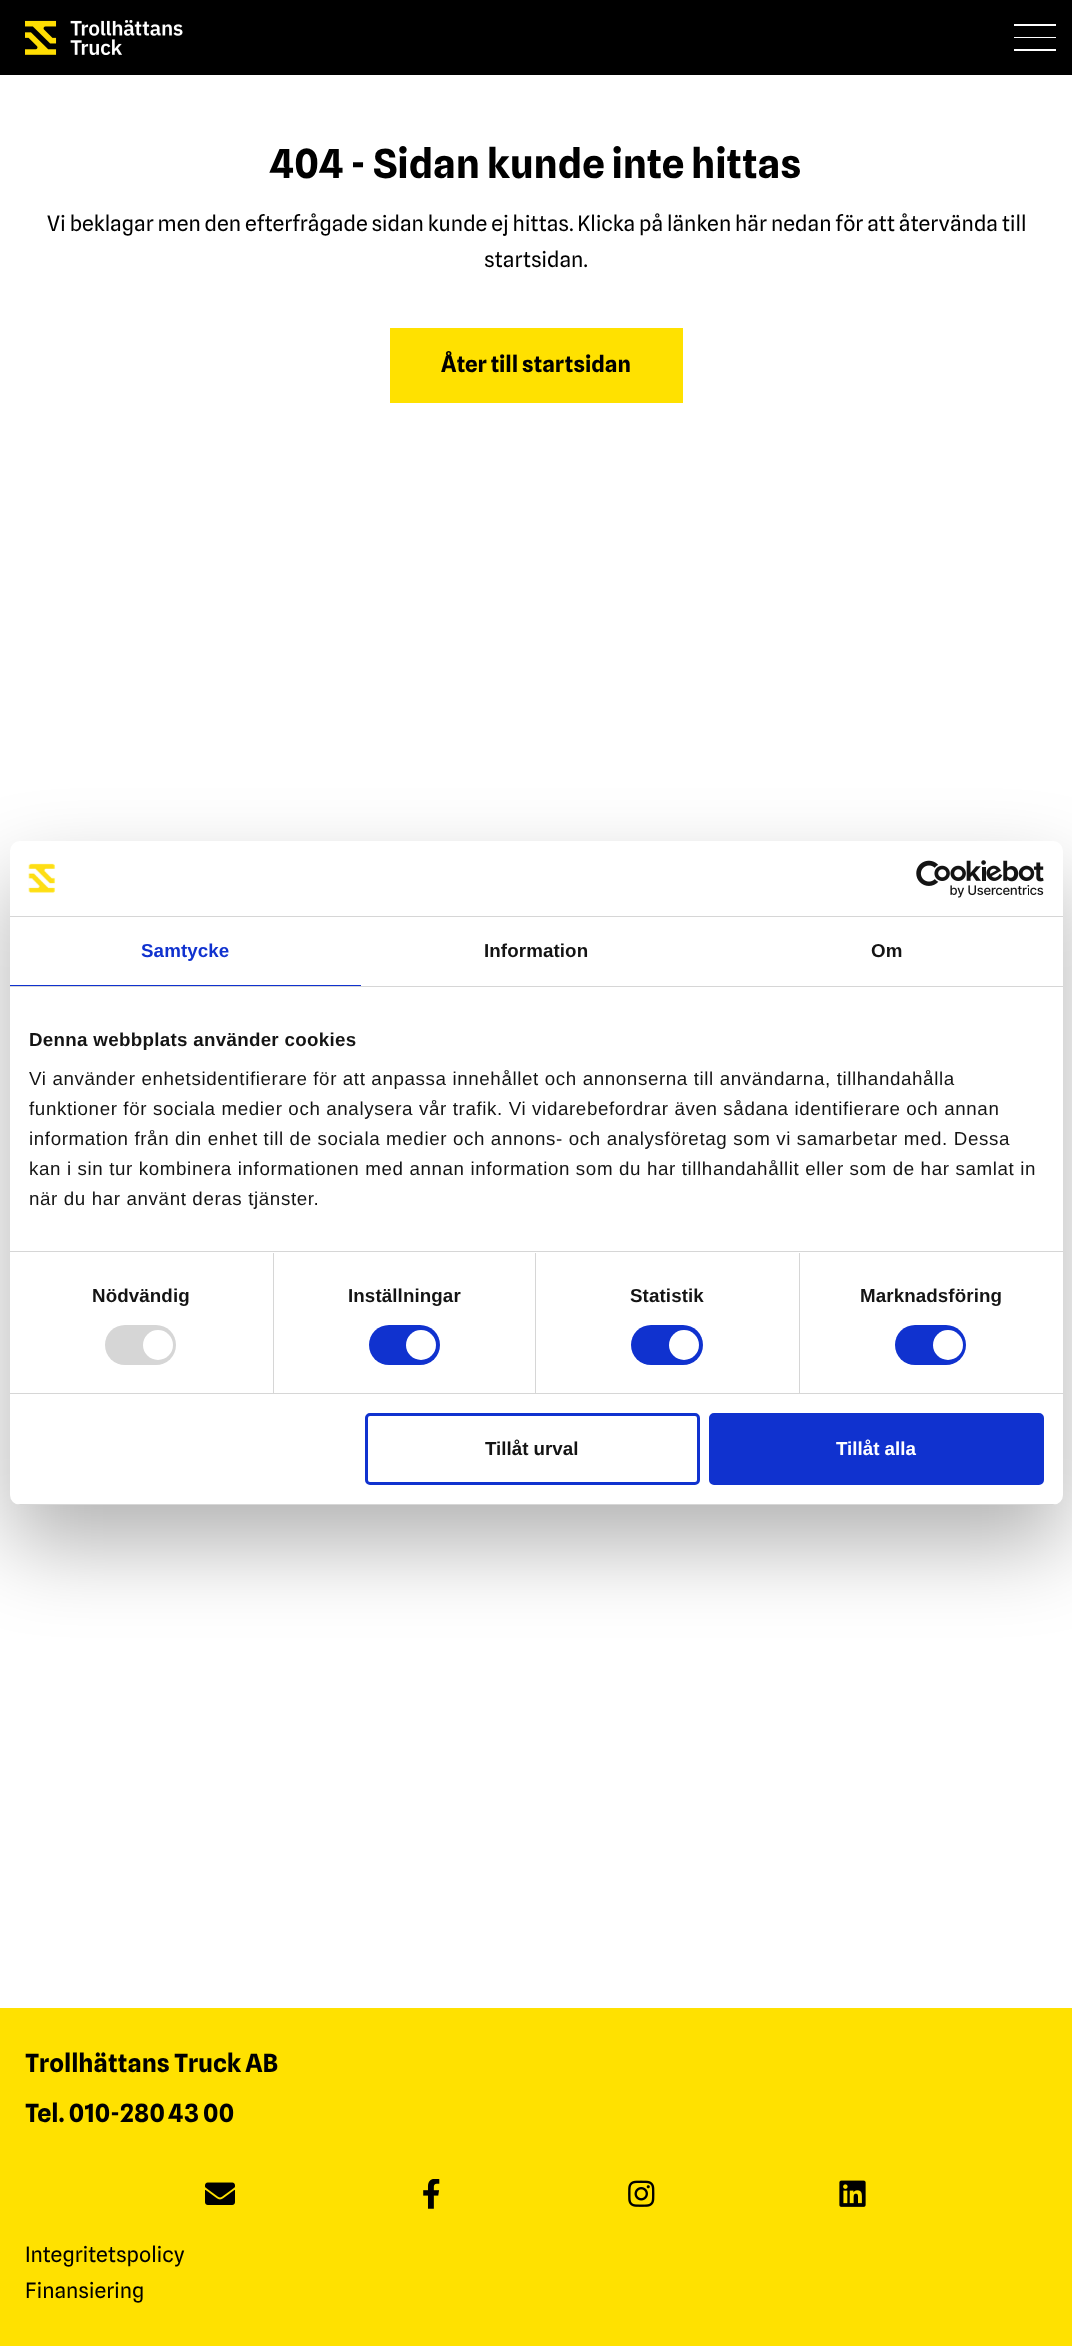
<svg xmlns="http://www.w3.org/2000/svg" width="1072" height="2346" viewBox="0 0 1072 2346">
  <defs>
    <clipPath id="clip1"><rect x="10" y="841" width="1053" height="664" rx="10"/></clipPath>
  </defs>
  <rect width="100%" height="100%" fill="rgb(255,255,255)"/>
  <rect x="0" y="0" width="1072" height="75" fill="rgb(0,0,0)"/>
  <image x="25" y="20" width="158" height="35" href="pic1.png"/>
  <path d="M1014 24V26H1056V24ZM1014 37V38H1056V37ZM1014 49V51H1056V49Z" fill="rgb(255,255,255)"/>
  <text x="271" y="178" font-family="Spline Sans" font-size="40" font-weight="bold" fill="rgb(0,0,0)">404 - Sidan kunde inte hittas</text>
  <g font-family="Spline Sans" font-size="21.25" fill="rgb(0,0,0)">
    <text x="47" y="231">Vi beklagar men den efterfrågade sidan kunde ej hittas. Klicka på länken här nedan för att återvända till</text>
    <text x="484" y="267">startsidan.</text>
  </g>
  <rect x="390" y="328" width="293" height="75" fill="rgb(255,225,0)"/>
  <text x="441" y="372" font-family="Spline Sans" font-size="22.25" font-weight="bold" fill="rgb(0,0,0)">Åter till startsidan</text>
  <rect x="10" y="881" width="1053" height="664" rx="10" fill="rgba(0,0,0,0.3)" filter="blur(42.5px)"/>
  <rect x="10" y="841" width="1053" height="664" rx="10" fill="rgb(255,255,255)"/>
  <rect x="10" y="916" width="1053" height="1" fill="rgb(214,214,214)"/>
  <image x="28" y="863" width="28" height="30" href="pic2.png"/>
  <image x="916" y="860" width="128" height="38" href="pic3.png"/>
  <rect x="10" y="986" width="1053" height="1" fill="rgb(214,214,214)"/>
  <rect x="10" y="985" width="351" height="1" fill="rgb(16,50,207)"/>
  <text x="141" y="957" font-family="Liberation Sans" font-size="18.75" font-weight="bold" letter-spacing="0.1" fill="rgb(16,50,207)">Samtycke</text>
  <g font-family="Liberation Sans" font-size="18.75" font-weight="bold" letter-spacing="0.1" fill="rgb(20,20,20)">
    <text x="484" y="957">Information</text>
    <text x="871" y="957">Om</text>
  </g>
  <rect x="10" y="1251" width="1053" height="1" fill="rgb(214,214,214)"/>
  <text x="29" y="1046" font-family="Liberation Sans" font-size="18.75" font-weight="bold" letter-spacing="0.3" fill="rgb(20,20,20)">Denna webbplats använder cookies</text>
  <g font-family="Liberation Sans" font-size="18.75" letter-spacing="0.62" fill="rgb(20,20,20)">
    <text>
      <tspan x="29" y="1085">Vi använder enhetsidentifierare för att anpassa innehållet och annonserna till användarna, tillhandahålla</tspan>
      <tspan x="29" y="1115">funktioner för sociala medier och analysera vår trafik. Vi vidarebefordrar även sådana identifierare och annan</tspan>
      <tspan x="29" y="1145">information från din enhet till de sociala medier och annons- och analysföretag som vi samarbetar med. Dessa</tspan>
      <tspan x="29" y="1175">kan i sin tur kombinera informationen med annan information som du har tillhandahållit eller som de har samlat in</tspan>
      <tspan x="29" y="1205">när du har använt deras tjänster.</tspan>
    </text>
  </g>
  <rect x="10" y="1393" width="1053" height="1" fill="rgb(214,214,214)"/>
  <rect x="273" y="1253" width="1" height="140" fill="rgb(214,214,214)"/>
  <text x="92" y="1302" font-family="Liberation Sans" font-size="18.75" font-weight="bold" letter-spacing="0.1" fill="rgb(20,20,20)">Nödvändig</text>
  <rect x="105" y="1325" width="71" height="40" rx="20" fill="rgb(214,214,214)"/>
  <circle cx="158" cy="1345" r="15" fill="rgb(255,255,255)"/>
  <rect x="535" y="1253" width="1" height="140" fill="rgb(214,214,214)"/>
  <text x="348" y="1302" font-family="Liberation Sans" font-size="18.75" font-weight="bold" letter-spacing="0.1" fill="rgb(20,20,20)">Inställningar</text>
  <rect x="369" y="1325" width="71" height="40" rx="20" fill="rgb(16,50,207)"/>
  <circle cx="421" cy="1345" r="15" fill="rgb(255,255,255)"/>
  <rect x="799" y="1253" width="1" height="140" fill="rgb(214,214,214)"/>
  <text x="630" y="1302" font-family="Liberation Sans" font-size="18.75" font-weight="bold" letter-spacing="0.1" fill="rgb(20,20,20)">Statistik</text>
  <rect x="631" y="1325" width="72" height="40" rx="20" fill="rgb(16,50,207)"/>
  <circle cx="684" cy="1345" r="15" fill="rgb(255,255,255)"/>
  <text x="860" y="1302" font-family="Liberation Sans" font-size="18.75" font-weight="bold" letter-spacing="0.1" fill="rgb(20,20,20)">Marknadsföring</text>
  <rect x="895" y="1325" width="71" height="40" rx="20" fill="rgb(16,50,207)"/>
  <circle cx="948" cy="1345" r="15" fill="rgb(255,255,255)"/>
  <g clip-path="url(#clip1)">
    <rect x="10" y="1504" width="1053" height="1" fill="rgb(214,214,214)"/>
  </g>
  <rect x="366.5" y="1414.5" width="332" height="69" rx="3.5" fill="none" stroke="rgb(16,50,207)" stroke-width="3"/>
  <text x="485" y="1455" font-family="Liberation Sans" font-size="18.75" font-weight="bold" fill="rgb(20,20,20)">Tillåt urval</text>
  <rect x="710.5" y="1414.5" width="332" height="69" rx="3.5" fill="rgb(16,50,207)" stroke="rgb(16,50,207)" stroke-width="3"/>
  <text x="836" y="1455" font-family="Liberation Sans" font-size="18.75" font-weight="bold" fill="rgb(255,255,255)">Tillåt alla</text>
  <rect x="0" y="2008" width="1072" height="338" fill="rgb(255,225,0)"/>
  <g font-family="Spline Sans" font-size="25" font-weight="bold" fill="rgb(0,0,0)">
    <text x="25" y="2072">Trollhättans Truck AB</text>
    <text x="25" y="2122">Tel. 010-280 43 00</text>
  </g>
  <image x="205" y="2182" width="30" height="23" href="pic4.png"/>
  <image x="423" y="2179" width="17" height="30" href="pic5.png"/>
  <image x="628" y="2180" width="27" height="27" href="pic6.png"/>
  <image x="839" y="2180" width="27" height="27" href="pic7.png"/>
  <g font-family="Spline Sans" font-size="21.25" fill="rgb(0,0,0)">
    <text>
      <tspan x="25" y="2262">Integritetspolicy</tspan>
      <tspan x="25" y="2298">Finansiering</tspan>
    </text>
  </g>
</svg>
